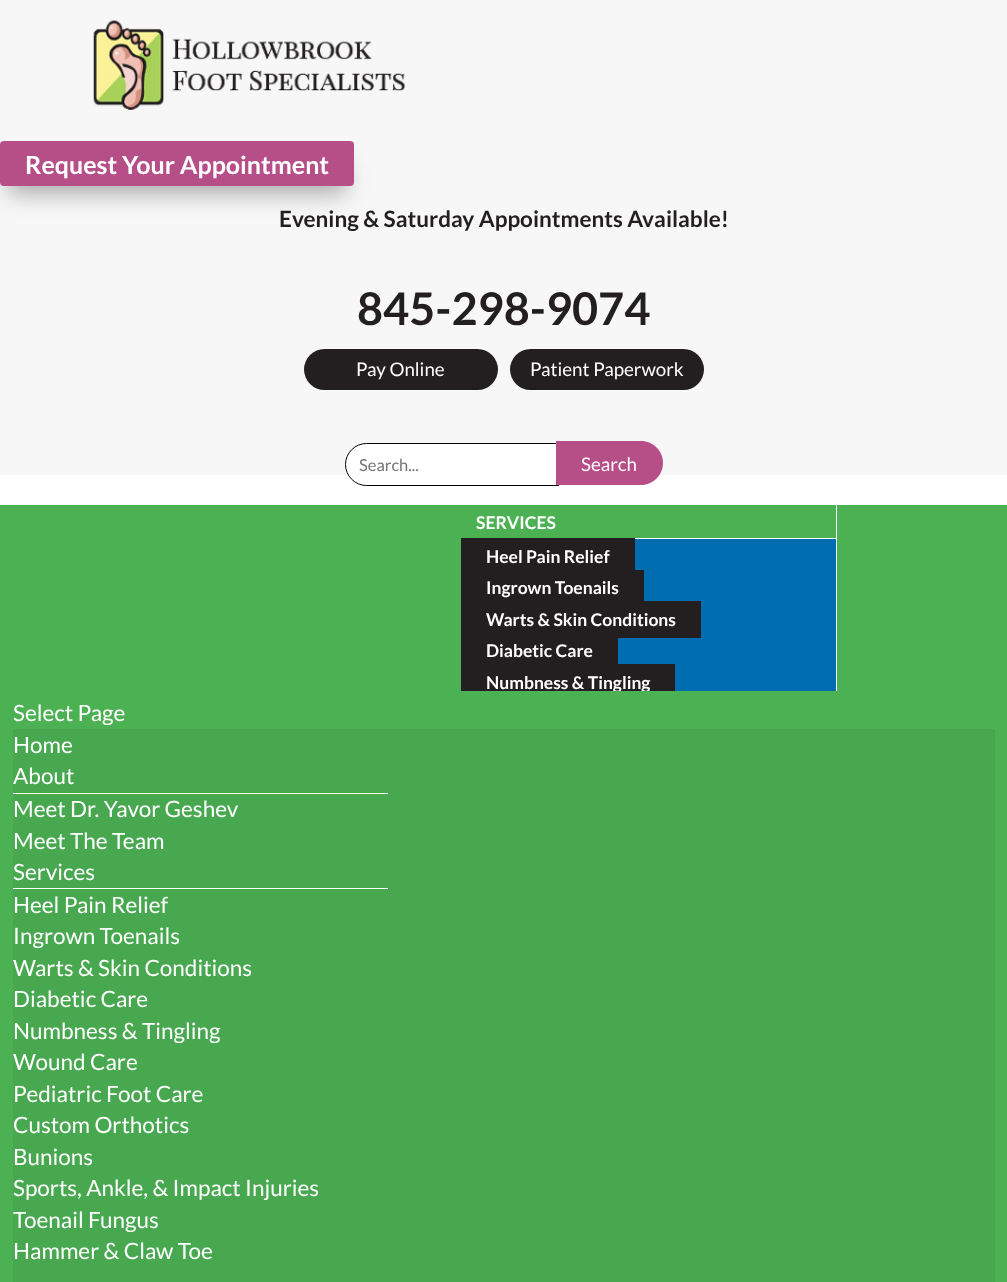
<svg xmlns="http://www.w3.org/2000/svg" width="1007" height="1282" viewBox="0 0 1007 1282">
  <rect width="100%" height="100%" fill="rgb(255,255,255)"/>
  <rect x="0" y="0" width="1007" height="475" fill="rgb(247,247,247)"/>
  <image x="93" y="19" width="313" height="91" href="pic1.png"/>
  <rect x="8" y="164" width="338" height="30" fill="rgba(0,0,0,0.3)" filter="blur(11px)"/>
  <rect x="0" y="141" width="354" height="45" rx="4" fill="rgb(182,78,135)"/>
  <text x="25" y="174" font-family="Lato" font-size="25" font-weight="bold" fill="rgb(255,255,255)">Request Your Appointment</text>
  <text x="279" y="227" font-family="Lato" font-size="22.5" font-weight="bold" fill="rgb(35,31,32)">Evening &amp; Saturday Appointments Available!</text>
  <text x="357" y="325" font-family="Lato" font-size="45" font-weight="bold" fill="rgb(35,31,32)">845-298-9074</text>
  <rect x="304" y="349" width="194" height="41" rx="20.5" fill="rgb(35,31,32)"/>
  <text x="356" y="376" font-family="Lato" font-size="18.75" fill="rgb(255,255,255)">Pay Online</text>
  <rect x="510" y="349" width="194" height="41" rx="20.5" fill="rgb(35,31,32)"/>
  <text x="530" y="376" font-family="Lato" font-size="18.75" fill="rgb(255,255,255)">Patient Paperwork</text>
  <path d="M366.5 443.5H558.5V485.5H366.5C355 485.5 345.5 476 345.5 464.5C345.5 453 355 443.5 366.5 443.5Z" fill="rgb(255,255,255)" stroke="rgb(0,0,0)"/>
  <text x="359" y="471" font-family="Lato" font-size="16.5" fill="rgb(117,117,117)">Search...</text>
  <path d="M556 441H641C653 441 663 451 663 463C663 475 653 485 641 485H556Z" fill="rgb(182,78,135)"/>
  <text x="581" y="471" font-family="Lato" font-size="18.75" fill="rgb(255,255,255)">Search</text>
  <rect x="0" y="505" width="1007" height="186" fill="rgb(76,177,83)"/>
  <rect x="836" y="505" width="1" height="186" fill="rgb(255,255,255)"/>
  <text x="476" y="529" font-family="Lato" font-size="17.5" font-weight="bold" fill="rgb(255,255,255)">SERVICES</text>
  <rect x="618" y="539" width="218" height="152" fill="rgb(1,109,177)"/>
  <rect x="635" y="538" width="201" height="1" fill="rgb(255,255,255)"/>
  <rect x="461" y="538" width="174" height="32" fill="rgb(35,31,32)"/>
  <text x="486" y="563" font-family="Lato" font-size="17.5" font-weight="bold" fill="rgb(255,255,255)">Heel Pain Relief</text>
  <rect x="461" y="570" width="183" height="31" fill="rgb(35,31,32)"/>
  <text x="486" y="594" font-family="Lato" font-size="17.5" font-weight="bold" fill="rgb(255,255,255)">Ingrown Toenails</text>
  <rect x="461" y="601" width="240" height="37" fill="rgb(35,31,32)"/>
  <text x="486" y="626" font-family="Lato" font-size="17.5" font-weight="bold" fill="rgb(255,255,255)">Warts &amp; Skin Conditions</text>
  <rect x="461" y="638" width="157" height="26" fill="rgb(35,31,32)"/>
  <text x="486" y="657" font-family="Lato" font-size="17.5" font-weight="bold" fill="rgb(255,255,255)">Diabetic Care</text>
  <rect x="461" y="664" width="214" height="27" fill="rgb(35,31,32)"/>
  <text x="486" y="689" font-family="Lato" font-size="17.5" font-weight="bold" fill="rgb(255,255,255)">Numbness &amp; Tingling</text>
  <rect x="0" y="691" width="1007" height="591" fill="rgb(76,177,83)"/>
  <text x="13" y="721" font-family="Lato" font-size="22.5" fill="rgb(255,255,255)">Select Page</text>
  <rect x="13" y="729" width="982" height="553" fill="rgb(72,168,79)"/>
  <g font-family="Lato" font-size="22.5" fill="rgb(255,255,255)">
    <text>
      <tspan x="13" y="753">Home</tspan>
      <tspan x="13" y="784">About</tspan>
    </text>
  </g>
  <rect x="13" y="793" width="375" height="1" fill="rgb(255,255,255)"/>
  <g font-family="Lato" font-size="22.5" fill="rgb(255,255,255)">
    <text>
      <tspan x="13" y="817">Meet Dr. Yavor Geshev</tspan>
      <tspan x="13" y="849">Meet The Team</tspan>
      <tspan x="13" y="880">Services</tspan>
    </text>
  </g>
  <rect x="13" y="888" width="375" height="1" fill="rgb(255,255,255)"/>
  <g font-family="Lato" font-size="22.5" fill="rgb(255,255,255)">
    <text>
      <tspan x="13" y="913">Heel Pain Relief</tspan>
      <tspan x="13" y="944">Ingrown Toenails</tspan>
      <tspan x="13" y="976">Warts &amp; Skin Conditions</tspan>
      <tspan x="13" y="1007">Diabetic Care</tspan>
      <tspan x="13" y="1039">Numbness &amp; Tingling</tspan>
      <tspan x="13" y="1070">Wound Care</tspan>
      <tspan x="13" y="1102">Pediatric Foot Care</tspan>
      <tspan x="13" y="1133">Custom Orthotics</tspan>
      <tspan x="13" y="1165">Bunions</tspan>
      <tspan x="13" y="1196">Sports, Ankle, &amp; Impact Injuries</tspan>
      <tspan x="13" y="1228">Toenail Fungus</tspan>
      <tspan x="13" y="1259">Hammer &amp; Claw Toe</tspan>
    </text>
  </g>
</svg>
